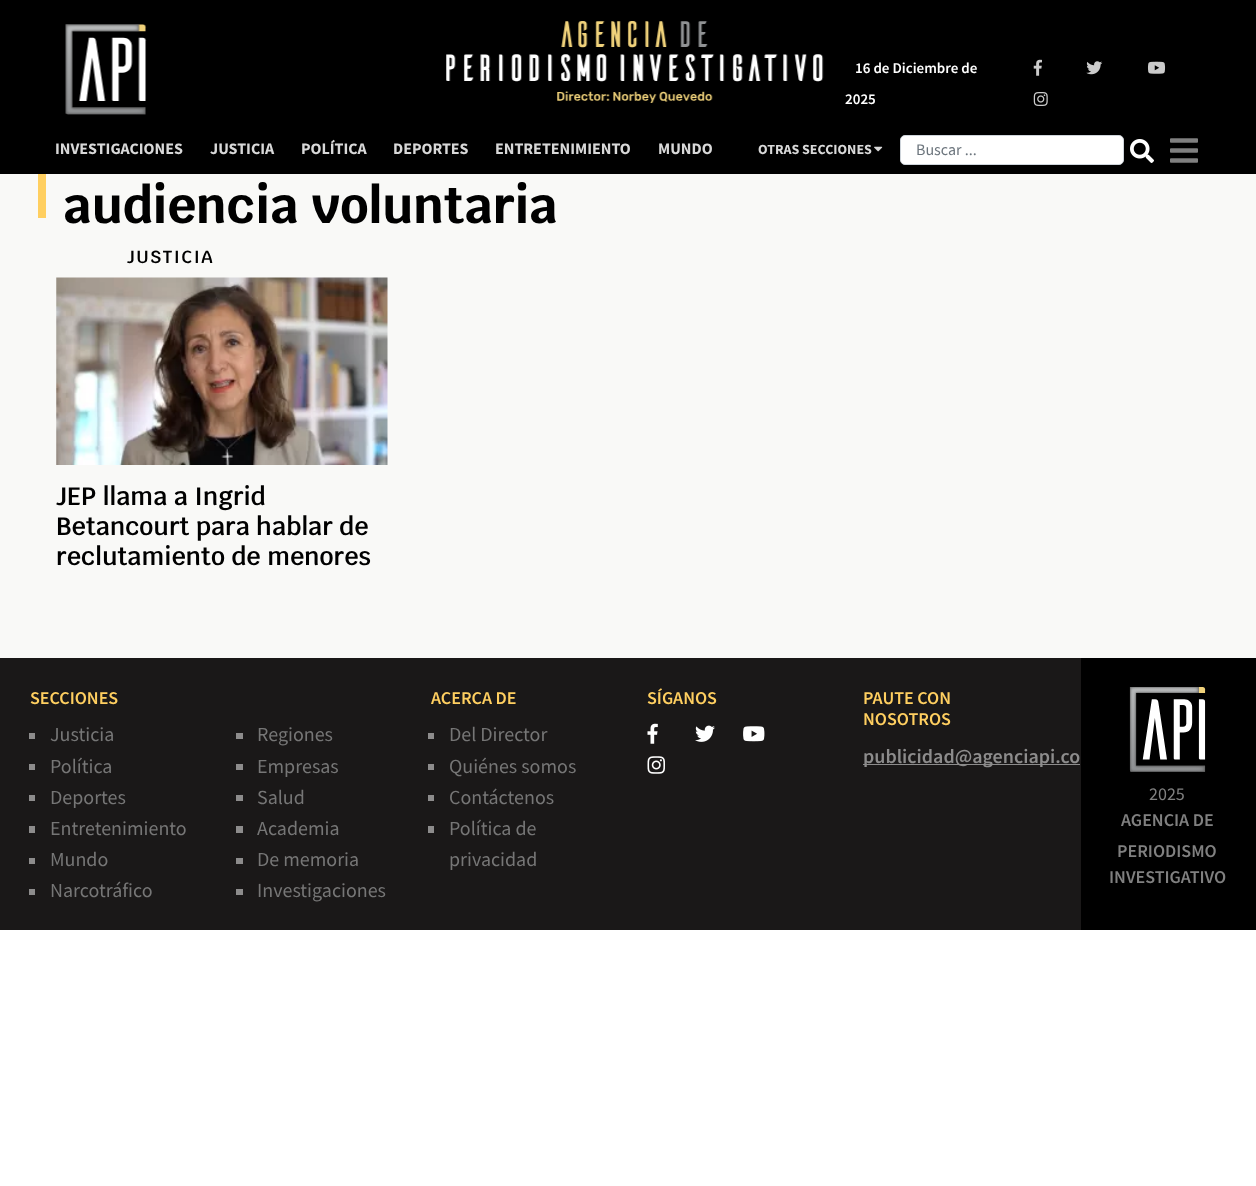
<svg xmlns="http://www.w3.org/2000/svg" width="1256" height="1186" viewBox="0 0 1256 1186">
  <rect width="100%" height="100%" fill="rgb(255,255,255)"/>
  <rect x="0" y="0" width="1256" height="174" fill="rgb(0,0,0)"/>
  <image x="65" y="24" width="82" height="91" href="pic1.png"/>
  <image x="446" y="21" width="378" height="82" href="pic2.png"/>
  <g font-family="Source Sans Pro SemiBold" font-size="15" font-weight="600" fill="rgb(255,255,255)">
    <text x="855" y="73">16 de Diciembre de</text>
    <text x="845" y="104">2025</text>
  </g>
  <image x="1033" y="59" width="9" height="17" href="pic3.png"/>
  <image x="1086" y="61" width="17" height="14" href="pic4.png"/>
  <image x="1147" y="61" width="19" height="13" href="pic5.png"/>
  <image x="1033" y="92" width="15" height="14" href="pic6.png"/>
  <g font-family="Source Sans Pro" font-size="16" font-weight="bold" fill="rgb(216,216,216)">
    <text x="55" y="154">INVESTIGACIONES</text>
    <text x="210" y="154">JUSTICIA</text>
    <text x="301" y="154">POLÍTICA</text>
    <text x="393" y="154">DEPORTES</text>
    <text x="495" y="154">ENTRETENIMIENTO</text>
    <text x="658" y="154">MUNDO</text>
  </g>
  <text x="758" y="154" font-family="Source Sans Pro" font-size="14" font-weight="bold" fill="rgb(216,216,216)">OTRAS SECCIONES</text>
  <image x="874" y="146" width="9" height="6" href="pic7.png"/>
  <rect x="900.5" y="135.5" width="223" height="29" rx="4.5" fill="rgb(255,255,255)" stroke="rgb(206,212,218)"/>
  <text x="916" y="155" font-family="Source Sans Pro" font-size="16" fill="rgb(108,117,125)">Buscar ...</text>
  <image x="1130" y="139" width="24" height="24" href="pic8.png"/>
  <image x="1170" y="138" width="28" height="25" href="pic9.png"/>
  <rect x="0" y="658" width="1081" height="272" fill="rgb(26,24,24)"/>
  <rect x="1081" y="658" width="175" height="272" fill="rgb(0,0,0)"/>
  <text x="30" y="704" font-family="Source Sans Pro SemiBold" font-size="18" font-weight="600" fill="rgb(255,207,96)">SECCIONES</text>
  <rect x="29" y="733" width="6" height="6" fill="rgb(141,140,140)"/>
  <text x="50" y="741" font-family="Source Sans Pro" font-size="20" fill="rgb(118,118,118)">Justicia</text>
  <rect x="236" y="733" width="7" height="6" fill="rgb(141,140,140)"/>
  <text x="257" y="741" font-family="Source Sans Pro" font-size="20" fill="rgb(118,118,118)">Regiones</text>
  <rect x="29" y="764" width="6" height="6" fill="rgb(141,140,140)"/>
  <text x="50" y="773" font-family="Source Sans Pro" font-size="20" fill="rgb(118,118,118)">Política</text>
  <rect x="236" y="764" width="7" height="6" fill="rgb(141,140,140)"/>
  <text x="257" y="773" font-family="Source Sans Pro" font-size="20" fill="rgb(118,118,118)">Empresas</text>
  <rect x="29" y="795" width="6" height="6" fill="rgb(141,140,140)"/>
  <text x="50" y="804" font-family="Source Sans Pro" font-size="20" fill="rgb(118,118,118)">Deportes</text>
  <rect x="236" y="795" width="7" height="6" fill="rgb(141,140,140)"/>
  <text x="257" y="804" font-family="Source Sans Pro" font-size="20" fill="rgb(118,118,118)">Salud</text>
  <rect x="29" y="826" width="6" height="7" fill="rgb(141,140,140)"/>
  <text x="50" y="835" font-family="Source Sans Pro" font-size="20" fill="rgb(118,118,118)">Entretenimiento</text>
  <rect x="236" y="826" width="7" height="7" fill="rgb(141,140,140)"/>
  <text x="257" y="835" font-family="Source Sans Pro" font-size="20" fill="rgb(118,118,118)">Academia</text>
  <rect x="29" y="858" width="6" height="6" fill="rgb(141,140,140)"/>
  <text x="50" y="866" font-family="Source Sans Pro" font-size="20" fill="rgb(118,118,118)">Mundo</text>
  <rect x="236" y="858" width="7" height="6" fill="rgb(141,140,140)"/>
  <text x="257" y="866" font-family="Source Sans Pro" font-size="20" fill="rgb(118,118,118)">De memoria</text>
  <rect x="29" y="889" width="6" height="6" fill="rgb(141,140,140)"/>
  <text x="50" y="897" font-family="Source Sans Pro" font-size="20" fill="rgb(118,118,118)">Narcotráfico</text>
  <rect x="236" y="889" width="7" height="6" fill="rgb(141,140,140)"/>
  <text x="257" y="897" font-family="Source Sans Pro" font-size="20" fill="rgb(118,118,118)">Investigaciones</text>
  <text x="431" y="704" font-family="Source Sans Pro SemiBold" font-size="18" font-weight="600" fill="rgb(255,207,96)">ACERCA DE</text>
  <rect x="428" y="733" width="6" height="6" fill="rgb(141,140,140)"/>
  <text x="449" y="741" font-family="Source Sans Pro" font-size="20" fill="rgb(118,118,118)">Del Director</text>
  <rect x="428" y="764" width="6" height="6" fill="rgb(141,140,140)"/>
  <text x="449" y="773" font-family="Source Sans Pro" font-size="20" fill="rgb(118,118,118)">Quiénes somos</text>
  <rect x="428" y="795" width="6" height="6" fill="rgb(141,140,140)"/>
  <text x="449" y="804" font-family="Source Sans Pro" font-size="20" fill="rgb(118,118,118)">Contáctenos</text>
  <rect x="428" y="826" width="6" height="7" fill="rgb(141,140,140)"/>
  <g font-family="Source Sans Pro" font-size="20" fill="rgb(118,118,118)">
    <text>
      <tspan x="449" y="835">Política de</tspan>
      <tspan x="449" y="866">privacidad</tspan>
    </text>
  </g>
  <text x="647" y="704" font-family="Source Sans Pro SemiBold" font-size="18" font-weight="600" fill="rgb(255,207,96)">SÍGANOS</text>
  <image x="647" y="723" width="11" height="21" href="pic10.png"/>
  <image x="695" y="725" width="20" height="17" href="pic11.png"/>
  <image x="743" y="726" width="22" height="16" href="pic12.png"/>
  <image x="647" y="756" width="18" height="18" href="pic13.png"/>
  <g font-family="Source Sans Pro SemiBold" font-size="18" font-weight="600" fill="rgb(255,207,96)">
    <text>
      <tspan x="863" y="704">PAUTE CON</tspan>
      <tspan x="863" y="725">NOSOTROS</tspan>
    </text>
  </g>
  <rect x="863" y="764" width="217" height="1" fill="rgb(141,140,140)"/>
  <text x="863" y="763" font-family="Source Sans Pro SemiBold" font-size="20" font-weight="600" fill="rgb(141,140,140)">publicidad@agenciapi.co</text>
  <image x="1129" y="687" width="77" height="85" href="pic14.png"/>
  <text x="1149" y="800" font-family="Source Sans Pro" font-size="18" fill="rgb(128,128,128)">2025</text>
  <g font-family="Source Sans Pro SemiBold" font-size="18" font-weight="600" fill="rgb(128,128,128)">
    <text x="1121" y="826">AGENCIA DE</text>
    <text x="1117" y="857">PERIODISMO</text>
    <text x="1109" y="883">INVESTIGATIVO</text>
  </g>
  <rect x="0" y="174" width="1256" height="484" fill="rgb(249,249,247)"/>
  <rect x="38" y="174" width="8" height="44" fill="rgb(255,207,96)"/>
  <text x="63" y="223" font-family="Krub" font-size="50" font-weight="bold" fill="rgb(0,0,0)">audiencia voluntaria</text>
  <text x="127" y="263" font-family="Krub" font-size="17.5" font-weight="600" letter-spacing="1.5" fill="rgb(0,0,0)">JUSTICIA</text>
  <image x="56" y="277" width="332" height="188" href="pic15.png"/>
  <g font-family="Krub" font-size="25" font-weight="600" fill="rgb(0,0,0)">
    <text>
      <tspan x="56" y="505">JEP llama a Ingrid</tspan>
      <tspan x="56" y="535">Betancourt para hablar de</tspan>
      <tspan x="56" y="565">reclutamiento de menores</tspan>
    </text>
  </g>
</svg>
